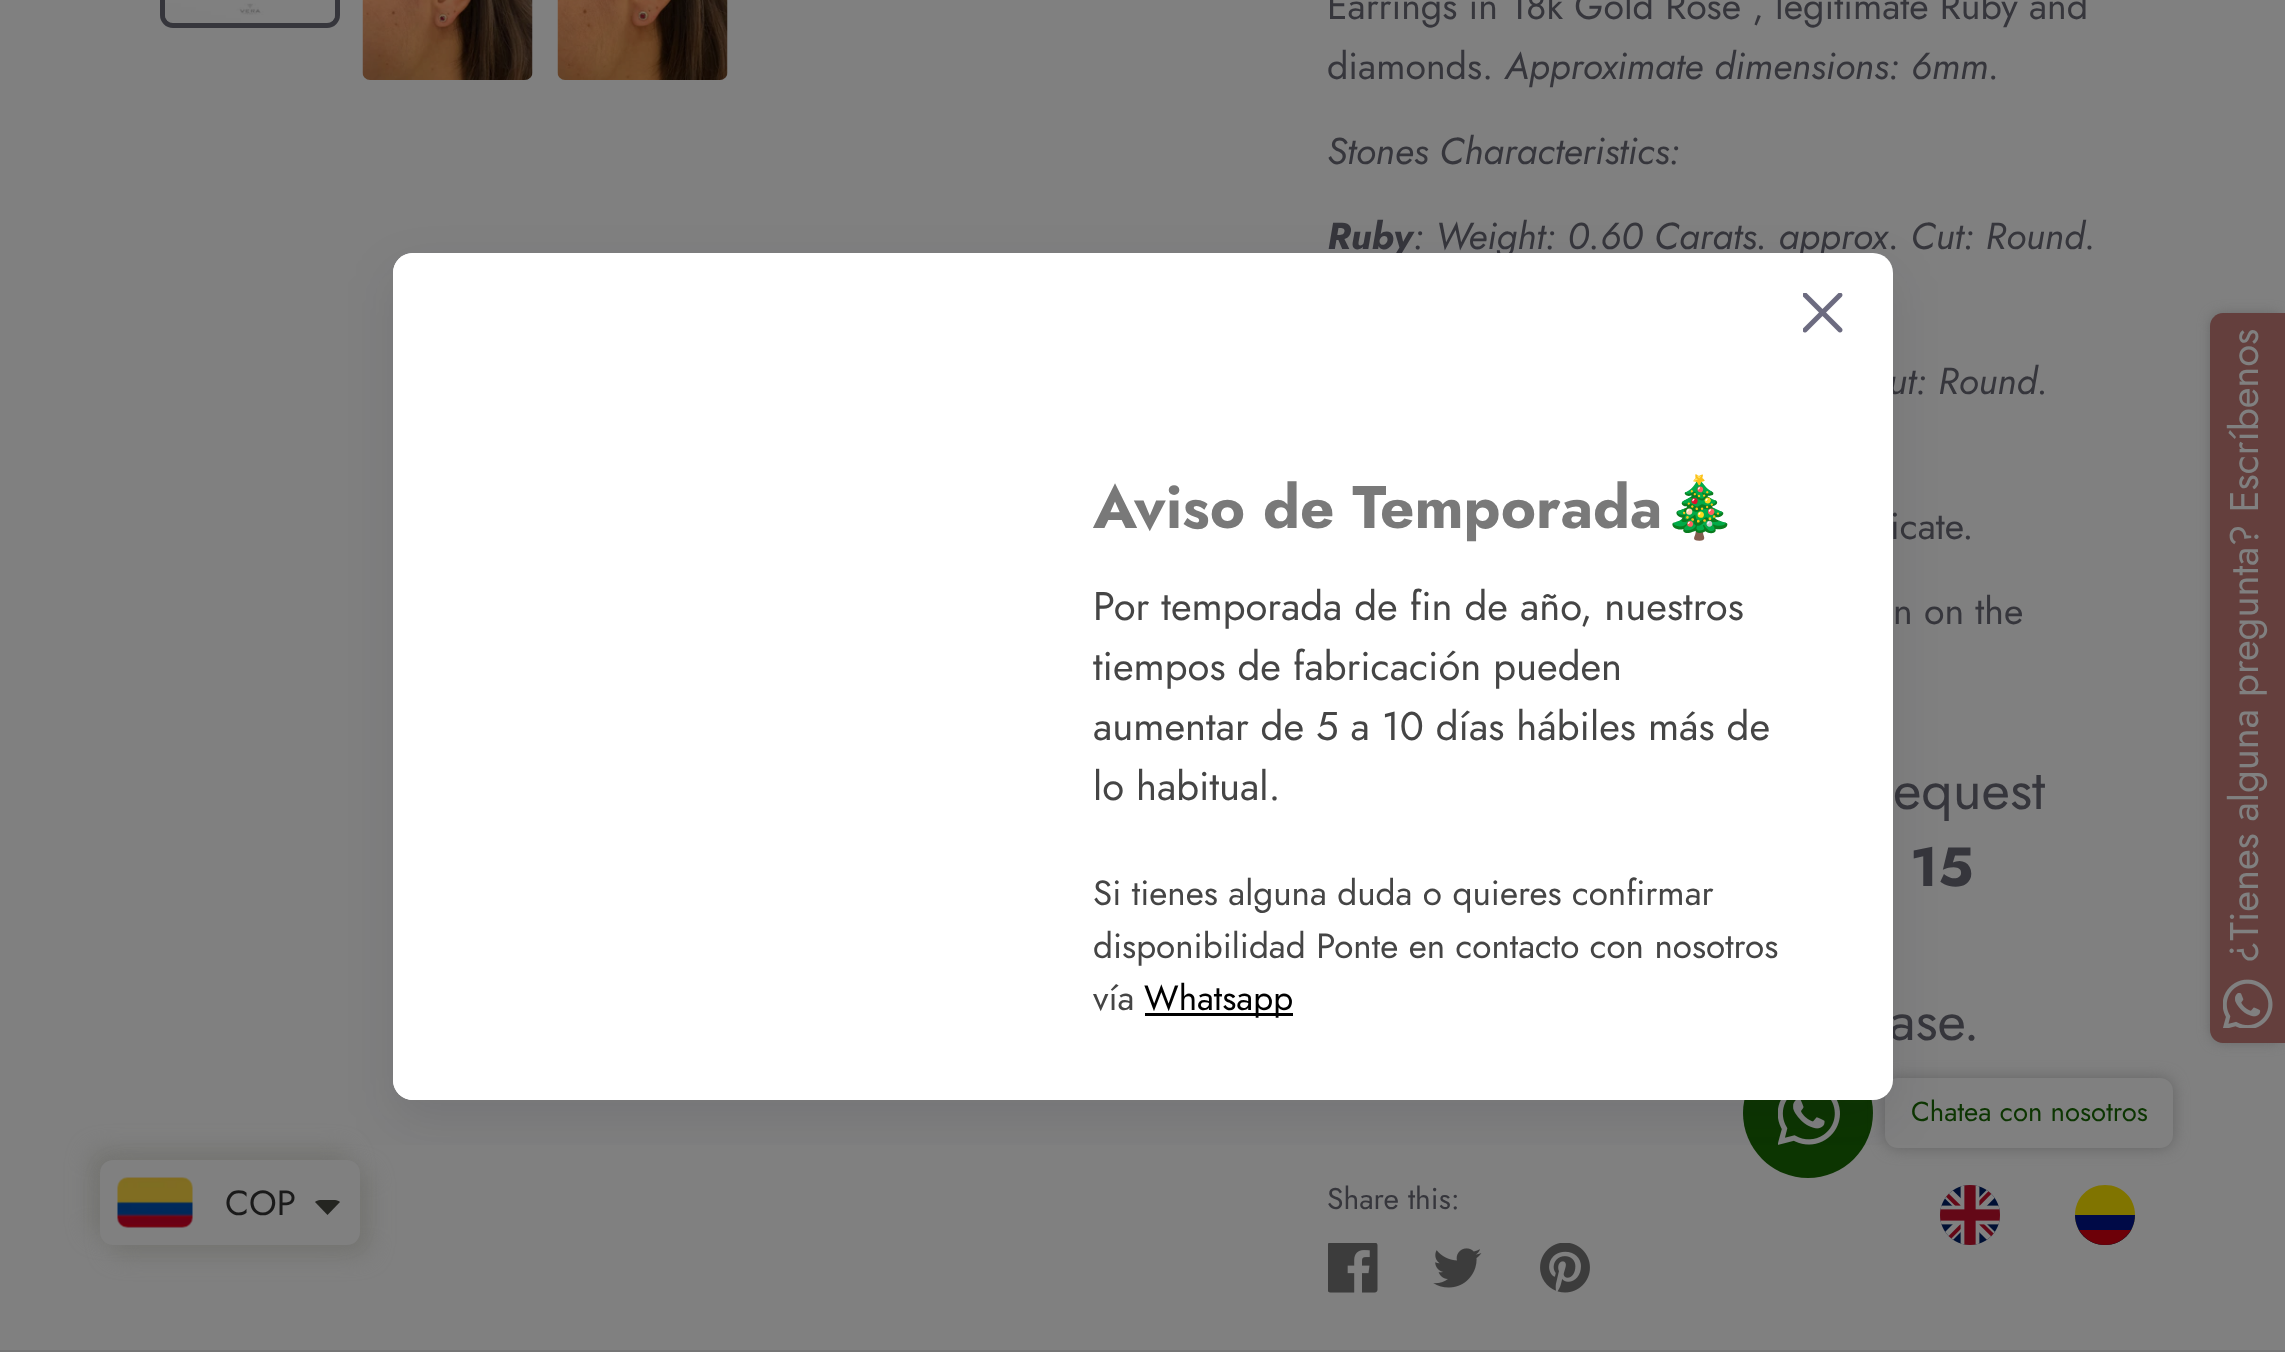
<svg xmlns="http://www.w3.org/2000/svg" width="2285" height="1352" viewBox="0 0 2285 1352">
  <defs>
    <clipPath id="clip1"><rect x="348" y="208" width="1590" height="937"/></clipPath>
  </defs>
  <rect width="100%" height="100%" fill="rgb(128,128,128)"/>
  <rect x="162.5" y="-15.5" width="175" height="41" rx="10.5" fill="none" stroke="rgb(54,54,60)" stroke-width="5"/>
  <image x="165" y="3" width="170" height="20" href="pic1.png"/>
  <image x="362" y="0" width="171" height="80" href="pic2.png"/>
  <image x="557" y="0" width="171" height="80" href="pic3.png"/>
  <g font-family="Jost" font-size="37.5" fill="rgb(54,54,60)">
    <text>
      <tspan x="1327" y="19">Earrings in 18k Gold Rose , legitimate Ruby and</tspan>
      <tspan x="1327" y="79">diamonds.</tspan>
    </text>
  </g>
  <g font-family="Jost" font-size="37.5" font-style="italic" fill="rgb(54,54,60)">
    <text x="1505" y="79">Approximate dimensions: 6mm.</text>
    <text x="1327" y="164">Stones Characteristics:</text>
  </g>
  <text x="1327" y="249" font-family="Jost" font-size="37.5" font-weight="bold" font-style="italic" fill="rgb(54,54,60)">Ruby</text>
  <g font-family="Jost" font-size="37.5" font-style="italic" fill="rgb(54,54,60)">
    <text x="1413" y="249">: Weight: 0.60 Carats. approx. Cut: Round.</text>
    <text x="1888" y="394">ut: Round.</text>
  </g>
  <g font-family="Jost" font-size="37.5" fill="rgb(54,54,60)">
    <text x="1890" y="539">icate.</text>
    <text x="1893" y="624">n on the</text>
  </g>
  <text x="1893" y="809" font-family="Jost" font-size="55" fill="rgb(54,54,60)">equest</text>
  <text x="1910" y="886" font-family="Jost" font-size="55" font-weight="bold" fill="rgb(54,54,60)">15</text>
  <text x="1889" y="1040" font-family="Jost" font-size="55" fill="rgb(54,54,60)">ase.</text>
  <text x="1327" y="1209" font-family="Jost" font-size="30" fill="rgb(54,54,60)">Share this:</text>
  <image x="1328" y="1243" width="50" height="50" href="pic4.png"/>
  <image x="1433" y="1248" width="49" height="40" href="pic5.png"/>
  <image x="1540" y="1243" width="50" height="50" href="pic6.png"/>
  <rect x="2210" y="313" width="75" height="730" rx="13" fill="rgb(106,106,106)" filter="blur(6px)"/>
  <path d="M2223 313H2285V1043H2223C2216 1043 2210 1037 2210 1030V326C2210 319 2216 313 2223 313Z" fill="rgb(100,63,61)"/>
  <text x="2258" y="963" transform="rotate(-90 2258 963)" font-family="Jost" font-size="40" fill="rgb(128,128,128)">¿Tienes alguna pregunta? Escríbenos</text>
  <image x="2223" y="979" width="50" height="49" href="pic7.png"/>
  <circle cx="1808" cy="1113" r="65" fill="rgb(12,53,1)"/>
  <image x="1778" y="1100" width="62" height="45" href="pic9.png"/>
  <rect x="1885" y="1078" width="288" height="70" rx="13" fill="rgb(99,99,99)" filter="blur(7.5px)"/>
  <rect x="1885" y="1078" width="288" height="70" rx="13" fill="rgb(128,128,128)"/>
  <image x="1940" y="1185" width="60" height="60" href="pic10.png"/>
  <rect x="90" y="1150" width="260" height="85" rx="13" fill="rgb(116,116,113)" filter="blur(11px)"/>
  <rect x="110" y="1170" width="260" height="85" rx="13" fill="rgb(116,116,113)" filter="blur(11px)"/>
  <rect x="100" y="1160" width="260" height="85" rx="13" fill="rgb(128,128,128)"/>
  <g clip-path="url(#clip1)">
    <rect x="393" y="273" width="1500" height="847" rx="20" fill="rgba(18,17,39,0.1)" filter="blur(25px)"/>
  </g>
  <rect x="393" y="253" width="1500" height="847" rx="20" fill="rgb(255,255,255)"/>
  <path d="M413 253H993V1100H413C402 1100 393 1091 393 1080V273C393 262 402 253 413 253Z" fill="rgb(255,255,255)"/>
  <image x="1803" y="293" width="40" height="40" href="pic8.png"/>
  <text x="1093" y="528" font-family="Jost" font-size="60" font-weight="bold" fill="rgb(121,121,121)">Aviso de Temporada</text>
  <text x="1662" y="528" font-family="Noto Color Emoji" font-size="60" font-weight="bold" fill="rgb(121,121,121)">🎄</text>
  <g font-family="Jost" font-size="40" fill="rgb(69,69,69)">
    <text>
      <tspan x="1093" y="620">Por temporada de fin de año, nuestros</tspan>
      <tspan x="1093" y="680">tiempos de fabricación pueden</tspan>
      <tspan x="1093" y="740">aumentar de 5 a 10 días hábiles más de</tspan>
      <tspan x="1093" y="800">lo habitual.</tspan>
    </text>
  </g>
  <g font-family="Jost" font-size="35" fill="rgb(69,69,69)">
    <text>
      <tspan x="1093" y="905">Si tienes alguna duda o quieres confirmar</tspan>
      <tspan x="1093" y="958">disponibilidad Ponte en contacto con nosotros</tspan>
      <tspan x="1093" y="1010">vía</tspan>
    </text>
  </g>
  <rect x="1145" y="1013" width="148" height="3" fill="rgb(0,0,0)"/>
  <text x="1144" y="1010" font-family="Jost" font-size="35" fill="rgb(0,0,0)">Whatsapp</text>
  <text x="1911" y="1121" font-family="Jost" font-size="27.5" fill="rgb(12,53,1)">Chatea con nosotros</text>
  <path d="M2105 1185C2122 1185 2135 1198 2135 1215C2135 1232 2122 1245 2105 1245C2088 1245 2075 1232 2075 1215C2075 1198 2088 1185 2105 1185Z" fill="rgb(128,116,0)"/>
  <path d="M2075 1215C2075 1232 2088 1245 2105 1245C2122 1245 2135 1232 2135 1215Z" fill="rgb(0,10,71)"/>
  <path d="M2131 1230C2119 1250 2091 1250 2079 1230Z" fill="rgb(109,0,8)"/>
  <image x="117" y="1177" width="76" height="51" href="pic11.png"/>
  <text x="225" y="1215" font-family="Jost" font-size="35" fill="rgb(26,26,26)">COP</text>
  <path d="M320 1200C318 1200 316 1201 315 1202L327.5 1215L340 1202C339 1201 337 1200 335 1200Z" fill="rgb(36,37,33)"/>
  <rect x="0" y="1350" width="2285" height="2" fill="rgb(117,117,118)"/>
</svg>
